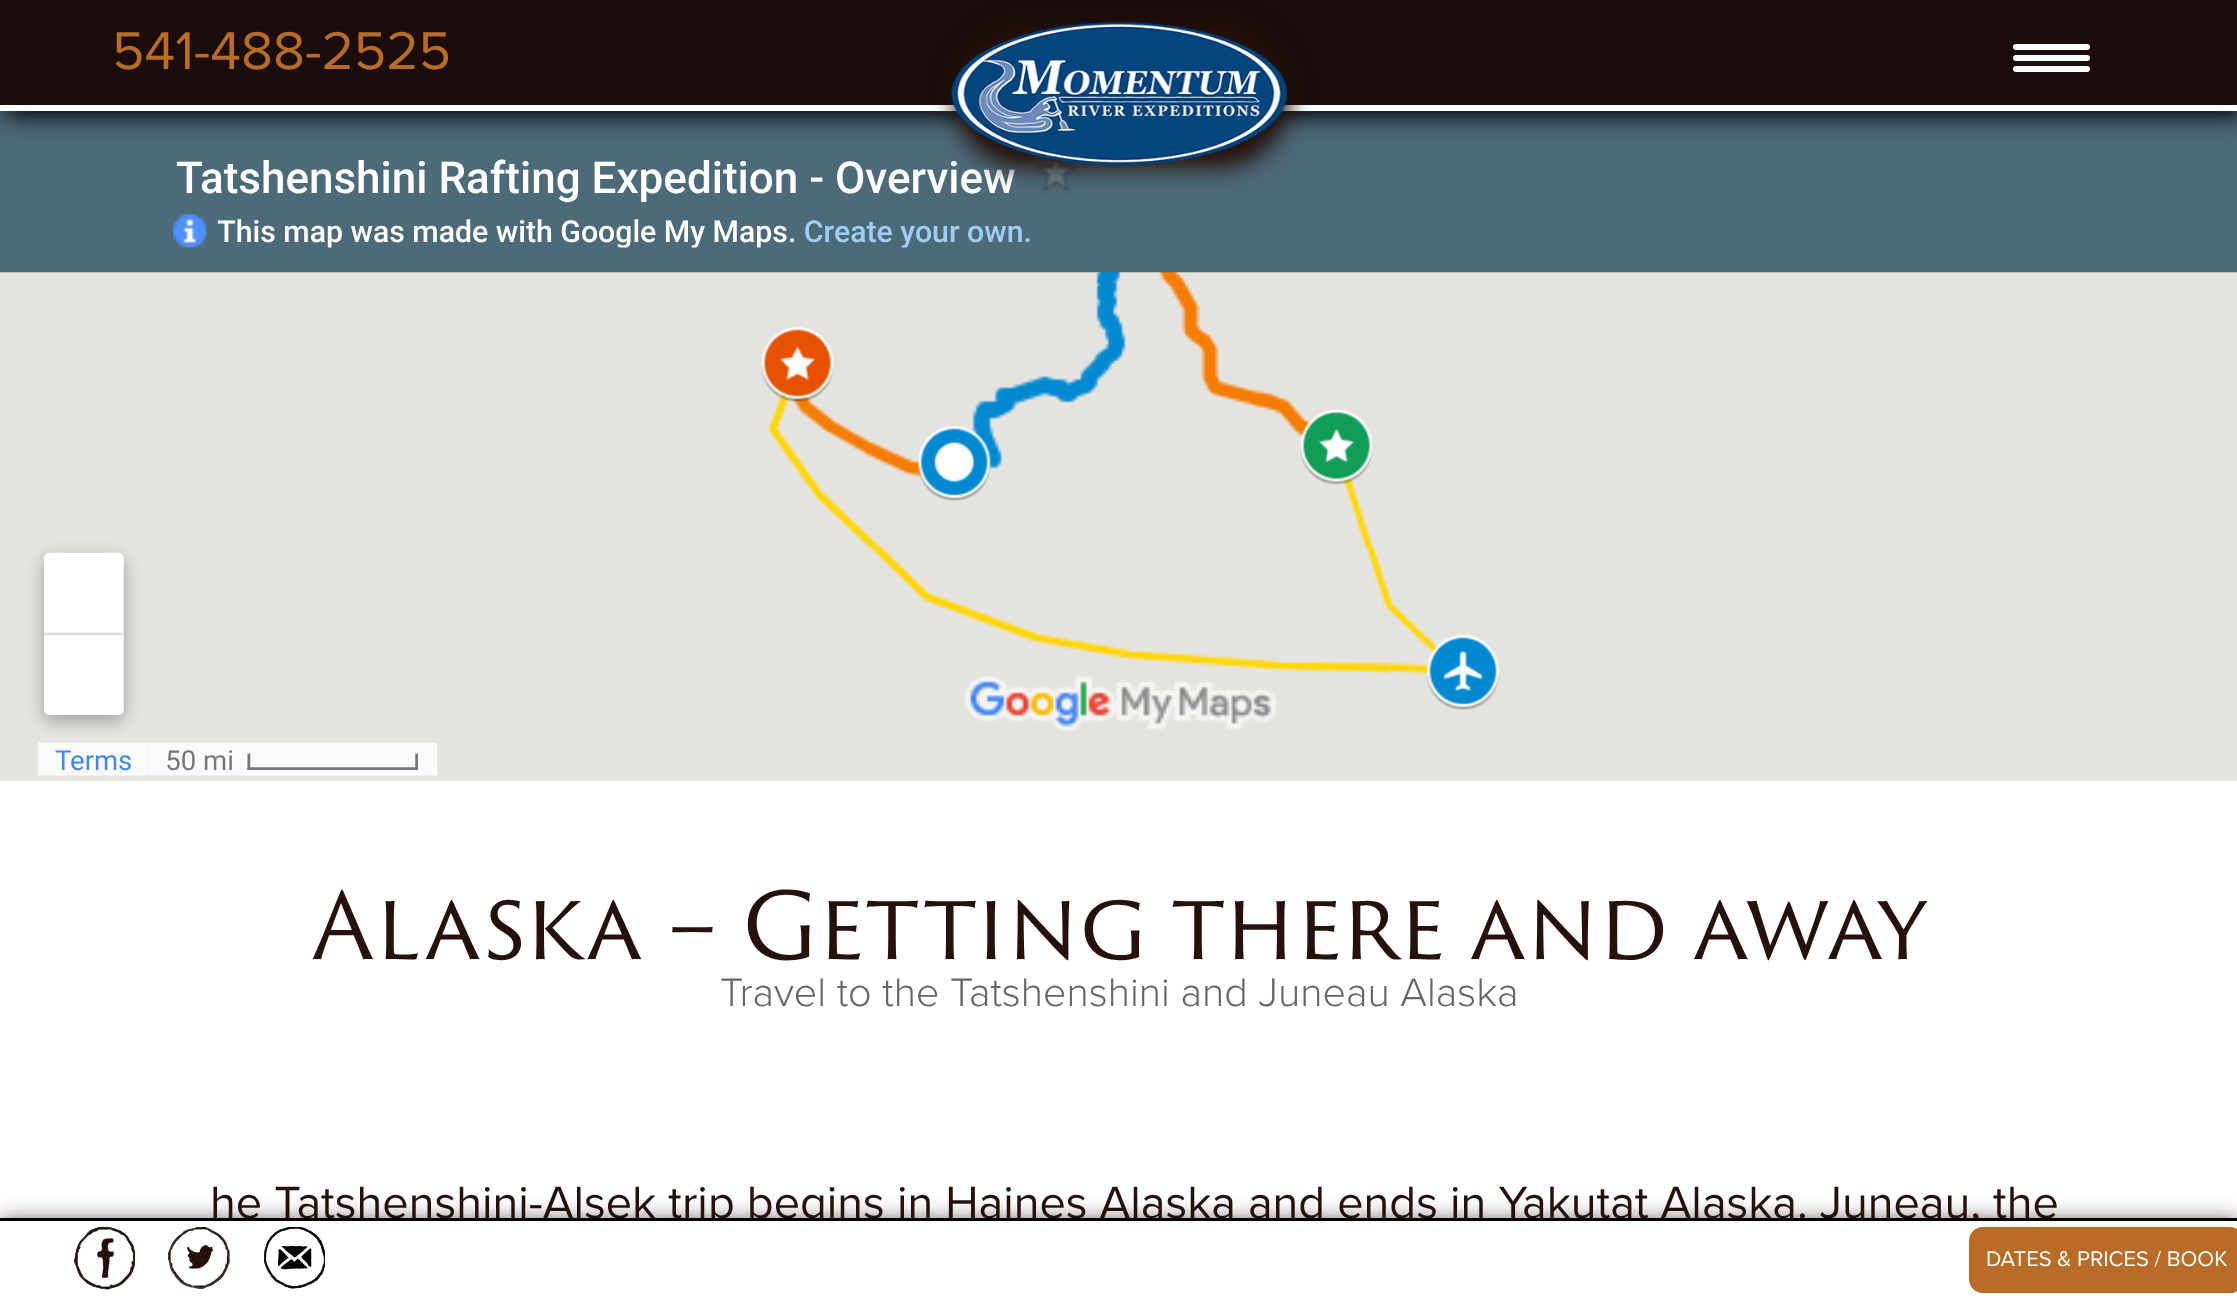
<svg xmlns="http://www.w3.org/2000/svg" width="2237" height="1299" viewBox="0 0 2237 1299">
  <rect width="100%" height="100%" fill="rgb(255,255,255)"/>
  <image x="0" y="111" width="2237" height="670" href="pic2.png"/>
  <rect x="6" y="6" width="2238" height="110" fill="rgb(0,0,0)" filter="blur(11px)"/>
  <rect x="0" y="0" width="2237" height="105" fill="rgb(26,13,11)"/>
  <rect x="0" y="105" width="2237" height="6" fill="rgb(255,255,255)"/>
  <text x="112" y="69" font-family="Proxima Nova" font-size="55" fill="rgb(184,108,37)">541-488-2525</text>
  <rect x="954" y="25" width="336" height="143" rx="71.5" fill="rgb(37,18,12)" filter="blur(11px)"/>
  <image x="951" y="22" width="337" height="143" href="pic1.png"/>
  <rect x="2013" y="55" width="77" height="6" rx="3" fill="rgb(255,255,255)"/>
  <rect x="2013" y="44" width="77" height="6" rx="3" fill="rgb(255,255,255)"/>
  <rect x="2013" y="66" width="77" height="6" rx="3" fill="rgb(255,255,255)"/>
  <text x="311" y="959" font-family="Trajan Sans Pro" font-size="90.75" fill="rgb(37,18,12)">Alaska – Getting there and away</text>
  <text x="720" y="1006" font-family="Proxima Nova" font-size="41.25" font-weight="300" fill="rgb(102,102,102)">Travel to the Tatshenshini and Juneau Alaska</text>
  <text x="210" y="1218" font-family="Proxima Nova" font-size="46.75" fill="rgb(37,18,12)">he Tatshenshini-Alsek trip begins in Haines Alaska and ends in Yakutat Alaska. Juneau, the</text>
  <rect x="0" y="1224" width="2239" height="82" fill="rgb(37,18,12)" filter="blur(12.5px)"/>
  <rect x="0" y="1221" width="2237" height="78" fill="rgb(255,255,255)"/>
  <rect x="0" y="1218" width="2237" height="3" fill="rgb(0,0,0)"/>
  <image x="74" y="1227" width="61" height="63" href="pic3.png"/>
  <image x="168" y="1227" width="62" height="62" href="pic4.png"/>
  <image x="264" y="1227" width="61" height="62" href="pic5.png"/>
  <rect x="1969" y="1227" width="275" height="66" rx="14" fill="rgb(184,108,37)"/>
  <text x="1986" y="1266" font-family="Proxima Nova" font-size="22" fill="rgb(255,255,255)">DATES &amp; PRICES / BOOK</text>
</svg>
